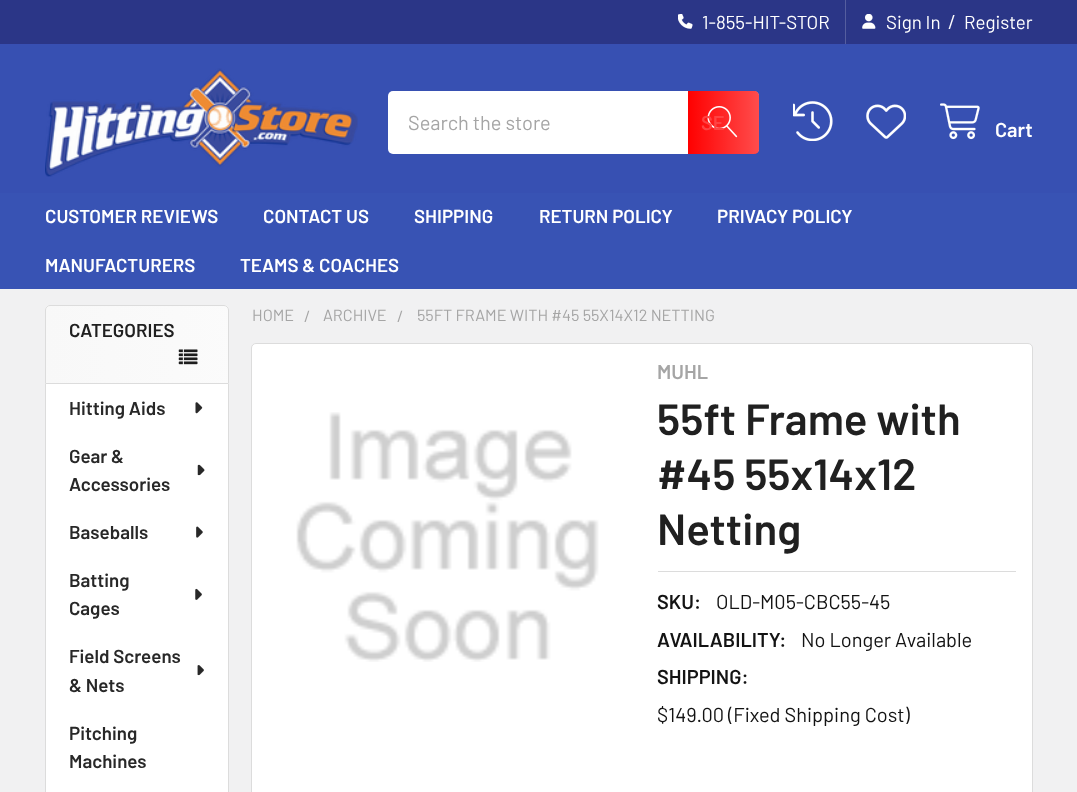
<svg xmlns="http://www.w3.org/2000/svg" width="1077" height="792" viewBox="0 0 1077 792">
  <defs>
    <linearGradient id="g1" gradientUnits="userSpaceOnUse" x1="688" y1="123" x2="759" y2="123"><stop offset="0" stop-color="rgb(255,0,0)"/><stop offset="1" stop-color="rgb(255,0,0)" stop-opacity="0.7"/></linearGradient>
    <linearGradient id="g2" gradientUnits="userSpaceOnUse" x1="45" y1="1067" x2="229" y2="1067"><stop offset="0" stop-color="rgb(248,248,248)"/><stop offset="1" stop-color="rgb(248,248,248)" stop-opacity="0.6"/></linearGradient>
  </defs>
  <rect width="100%" height="100%" fill="rgb(241,241,242)"/>
  <rect x="0" y="45" width="1077" height="148" fill="rgb(55,80,178)"/>
  <rect x="0" y="0" width="1077" height="44" fill="rgb(43,54,135)"/>
  <rect x="0" y="44" width="1077" height="1" fill="rgb(56,79,178)"/>
  <image x="678" y="14" width="15" height="15" href="pic1.png"/>
  <text x="702" y="29" font-family="Barlow" font-size="18.75" fill="rgb(255,255,255)">1-855-HIT-STOR</text>
  <rect x="845" y="0" width="1" height="44" fill="rgb(85,94,159)"/>
  <image x="862" y="14" width="14" height="15" href="pic2.png"/>
  <text x="886" y="29" font-family="Barlow" font-size="18.75" fill="rgb(255,255,255)">Sign In</text>
  <text x="948" y="29" font-family="Barlow" font-size="20" fill="rgb(255,255,255)">/</text>
  <text x="964" y="29" font-family="Barlow" font-size="18.75" fill="rgb(255,255,255)">Register</text>
  <image x="45" y="68" width="313" height="109" href="pic3.png"/>
  <rect x="388" y="91" width="371" height="63" rx="5" fill="rgb(255,255,255)"/>
  <path d="M688 91H754C757 91 759 93 759 96V149C759 152 757 154 754 154H688Z" fill="url(#g1)"/>
  <image x="707" y="106" width="31" height="32" href="pic4.png"/>
  <text x="408" y="130" font-family="Barlow" font-size="20" fill="rgb(165,165,165)">Search the store</text>
  <text x="701" y="130" font-family="Barlow" font-size="20" font-weight="600" fill="rgb(255,67,67)">SE</text>
  <image x="793" y="101" width="40" height="40" href="pic5.png"/>
  <image x="866" y="104" width="40" height="35" href="pic6.png"/>
  <image x="940" y="103" width="40" height="37" href="pic7.png"/>
  <text x="995" y="137" font-family="Barlow" font-size="20" font-weight="600" fill="rgb(255,255,255)">Cart</text>
  <rect x="0" y="193" width="1077" height="96" fill="rgb(56,83,180)"/>
  <g font-family="Barlow" font-size="18.75" font-weight="600" fill="rgb(255,255,255)">
    <text x="45" y="223">CUSTOMER REVIEWS</text>
    <text x="263" y="223">CONTACT US</text>
    <text x="414" y="223">SHIPPING</text>
    <text x="539" y="223">RETURN POLICY</text>
    <text x="717" y="223">PRIVACY POLICY</text>
    <text x="45" y="272">MANUFACTURERS</text>
    <text x="240" y="272">TEAMS &amp; COACHES</text>
  </g>
  <rect x="45" y="305" width="184" height="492" rx="5" fill="rgb(255,255,255)"/>
  <rect x="45" y="305" width="184" height="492" rx="5" fill="url(#g2)"/>
  <path d="M50 305.5H224C226.5 305.5 228.5 307.5 228.5 310V383.5H45.5V310C45.5 307.5 47.5 305.5 50 305.5Z" fill="none" stroke="rgb(220,220,220)"/>
  <text x="69" y="337" font-family="Barlow" font-size="18.75" font-weight="600" fill="rgb(32,32,32)">CATEGORIES</text>
  <image x="178" y="349" width="20" height="16" href="pic8.png"/>
  <rect x="46" y="384" width="182" height="408" fill="rgb(255,255,255)"/>
  <path d="M45 384H229V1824C229 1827 227 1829 224 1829H50C47 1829 45 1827 45 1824ZM46 384H228V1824C228 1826 226 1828 224 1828H50C48 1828 46 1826 46 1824Z" fill="rgb(220,220,220)" fill-rule="evenodd"/>
  <text x="69" y="415" font-family="Barlow" font-size="18.75" font-weight="600" fill="rgb(40,40,40)">Hitting Aids</text>
  <image x="195" y="402" width="8" height="12" href="pic9.png"/>
  <text x="69" y="463" font-family="Barlow" font-size="18.75" font-weight="600" fill="rgb(40,40,40)">Gear &amp;</text>
  <image x="197" y="464" width="8" height="12" href="pic10.png"/>
  <g font-family="Barlow" font-size="18.75" font-weight="600" fill="rgb(40,40,40)">
    <text x="69" y="491">Accessories</text>
    <text x="69" y="539">Baseballs</text>
  </g>
  <image x="196" y="526" width="7" height="12" href="pic11.png"/>
  <text x="69" y="587" font-family="Barlow" font-size="18.75" font-weight="600" fill="rgb(40,40,40)">Batting</text>
  <image x="195" y="588" width="7" height="12" href="pic12.png"/>
  <g font-family="Barlow" font-size="18.75" font-weight="600" fill="rgb(40,40,40)">
    <text x="69" y="615">Cages</text>
    <text x="69" y="663">Field Screens</text>
  </g>
  <image x="197" y="665" width="7" height="11" href="pic13.png"/>
  <g font-family="Barlow" font-size="18.75" font-weight="600" fill="rgb(40,40,40)">
    <text x="69" y="692">&amp; Nets</text>
    <text>
      <tspan x="69" y="740">Pitching</tspan>
      <tspan x="69" y="768">Machines</tspan>
    </text>
  </g>
  <g font-family="Barlow" font-size="16.25" fill="rgb(165,165,165)">
    <text x="252" y="321">HOME</text>
    <text x="304" y="322">/</text>
    <text x="323" y="321">ARCHIVE</text>
    <text x="397" y="322">/</text>
    <text x="417" y="321">55FT FRAME WITH #45 55X14X12 NETTING</text>
  </g>
  <rect x="251.5" y="343.5" width="781" height="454" rx="4.5" fill="rgb(255,255,255)" stroke="rgb(220,220,220)"/>
  <image x="296" y="412" width="303" height="250" href="pic14.png"/>
  <text x="657" y="379" font-family="Barlow" font-size="20" font-weight="600" fill="rgb(165,165,165)">MUHL</text>
  <g font-family="Barlow" font-size="43.75" font-weight="600" fill="rgb(32,32,32)">
    <text>
      <tspan x="657" y="435">55ft Frame with</tspan>
      <tspan x="657" y="490">#45 55x14x12</tspan>
      <tspan x="657" y="545">Netting</tspan>
    </text>
  </g>
  <rect x="658" y="571" width="358" height="1" fill="rgb(220,220,220)"/>
  <text x="657" y="609" font-family="Barlow" font-size="20" font-weight="600" fill="rgb(19,19,19)">SKU:</text>
  <text x="716" y="609" font-family="Barlow" font-size="20" fill="rgb(19,19,19)">OLD-M05-CBC55-45</text>
  <text x="657" y="647" font-family="Barlow" font-size="20" font-weight="600" fill="rgb(19,19,19)">AVAILABILITY:</text>
  <text x="801" y="647" font-family="Barlow" font-size="20" fill="rgb(19,19,19)">No Longer Available</text>
  <text x="657" y="684" font-family="Barlow" font-size="20" font-weight="600" fill="rgb(19,19,19)">SHIPPING:</text>
  <text x="657" y="722" font-family="Barlow" font-size="20" fill="rgb(19,19,19)">$149.00 (Fixed Shipping Cost)</text>
</svg>
